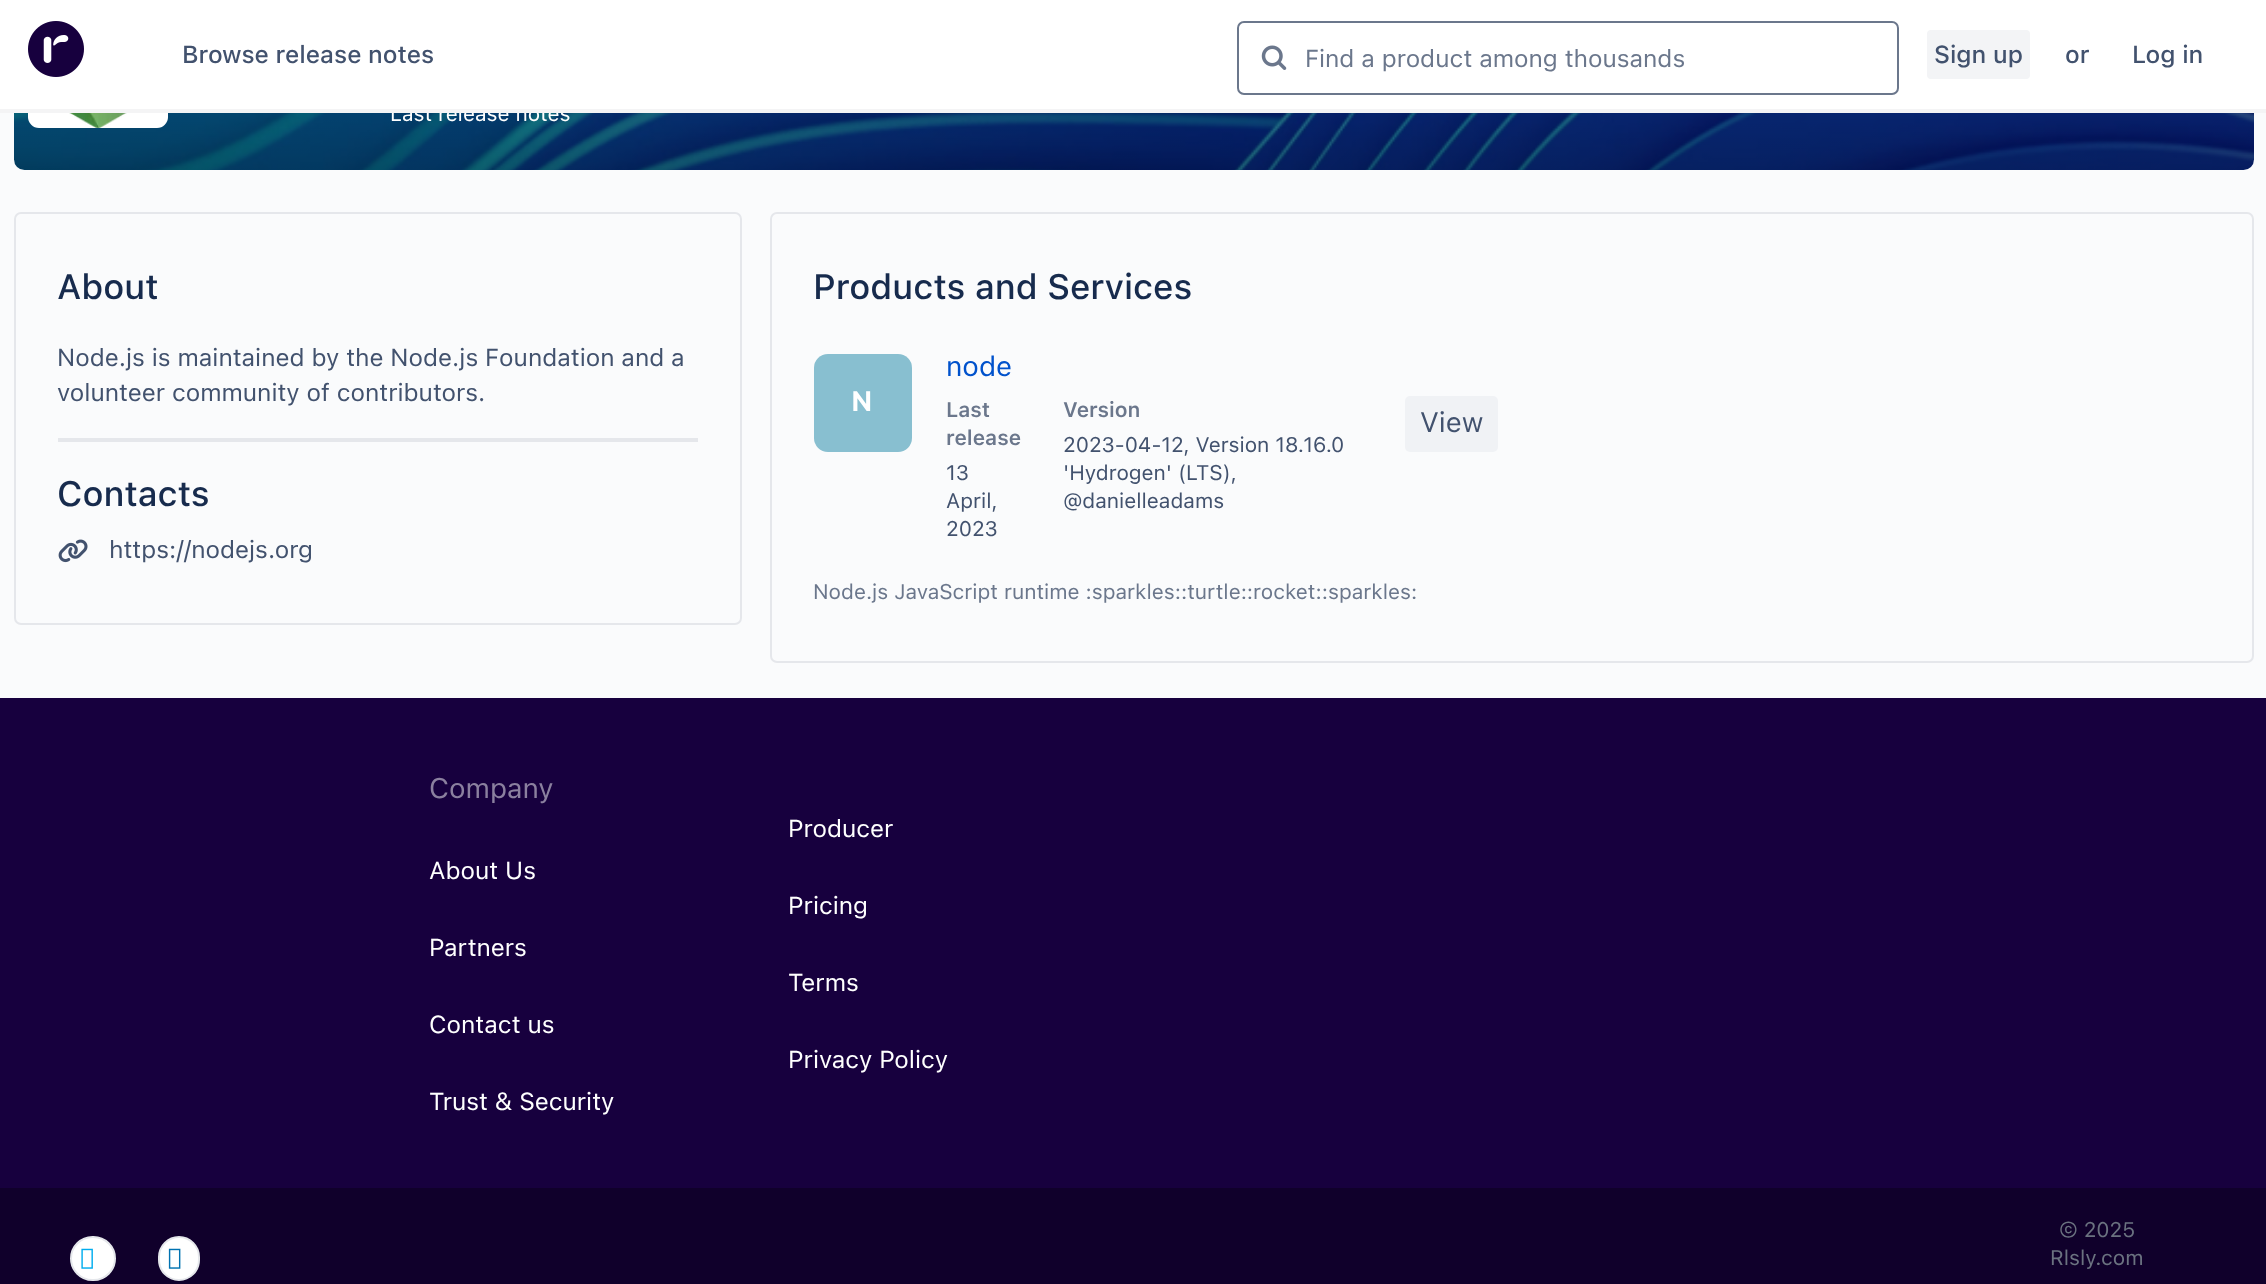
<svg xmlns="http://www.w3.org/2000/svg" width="2266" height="1284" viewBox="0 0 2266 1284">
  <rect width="100%" height="100%" fill="rgb(250,251,252)"/>
  <image x="14" y="113" width="2240" height="57" href="pic3.png"/>
  <rect x="28" y="-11" width="140" height="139" rx="11" fill="rgb(255,255,255)"/>
  <rect x="0" y="0" width="2266" height="109" fill="rgb(255,255,255)"/>
  <text x="390" y="121" font-family="SF Pro Text" font-size="21" fill="rgb(255,255,255)">Last release notes</text>
  <rect x="0" y="109" width="2266" height="4" fill="rgb(244,244,245)"/>
  <image x="28" y="21" width="56" height="56" href="pic1.png"/>
  <text x="182" y="63" font-family="SF Pro Text" font-size="24.5" font-weight="500" fill="rgb(66,82,110)">Browse release notes</text>
  <rect x="1238" y="22" width="660" height="72" rx="6" fill="none" stroke="rgb(107,119,140)" stroke-width="2"/>
  <image x="1261" y="45" width="26" height="25" href="pic2.png"/>
  <text x="1305" y="67" font-family="SF Pro Text" font-size="24.5" fill="rgb(107,119,140)">Find a product among thousands</text>
  <rect x="1927" y="30" width="103" height="49" rx="4" fill="rgb(243,244,246)"/>
  <g font-family="SF Pro Text" font-size="24.5" font-weight="500" fill="rgb(66,82,110)">
    <text x="1934" y="63">Sign up</text>
    <text x="2065" y="63">or</text>
    <text x="2132" y="63">Log in</text>
  </g>
  <image x="69" y="113" width="58" height="15" href="pic4.png"/>
  <rect x="15" y="213" width="726" height="411" rx="6" fill="none" stroke="rgb(229,231,235)" stroke-width="2"/>
  <text x="57" y="299" font-family="SF Pro Text" font-size="35" font-weight="500" fill="rgb(23,43,77)">About</text>
  <g font-family="SF Pro Text" font-size="24.5" fill="rgb(66,82,110)">
    <text>
      <tspan x="57" y="366">Node.js is maintained by the Node.js Foundation and a</tspan>
      <tspan x="57" y="401">volunteer community of contributors.</tspan>
    </text>
  </g>
  <rect x="58" y="438" width="640" height="4" fill="rgb(229,231,235)"/>
  <text x="57" y="506" font-family="SF Pro Text" font-size="35" font-weight="500" fill="rgb(23,43,77)">Contacts</text>
  <image x="58" y="539" width="30" height="24" href="pic5.png"/>
  <text x="109" y="558" font-family="SF Pro Text" font-size="24.5" fill="rgb(66,82,110)">https://nodejs.org</text>
  <rect x="771" y="213" width="1482" height="449" rx="6" fill="none" stroke="rgb(229,231,235)" stroke-width="2"/>
  <text x="813" y="299" font-family="SF Pro Text" font-size="35" font-weight="500" fill="rgb(23,43,77)">Products and Services</text>
  <rect x="814" y="354" width="98" height="98" rx="14" fill="rgb(136,191,208)"/>
  <text x="851" y="411" font-family="SF Pro Text" font-size="28" font-weight="bold" fill="rgb(255,255,255)">N</text>
  <text x="946" y="376" font-family="SF Pro Text" font-size="28" fill="rgb(0,82,204)">node</text>
  <g font-family="SF Pro Text" font-size="21" font-weight="600" fill="rgb(107,119,140)">
    <text>
      <tspan x="946" y="417">Last</tspan>
      <tspan x="946" y="445">release</tspan>
    </text>
  </g>
  <g font-family="SF Pro Text" font-size="21" fill="rgb(66,82,110)">
    <text>
      <tspan x="946" y="480">13</tspan>
      <tspan x="946" y="508">April,</tspan>
      <tspan x="946" y="536">2023</tspan>
    </text>
  </g>
  <text x="1063" y="417" font-family="SF Pro Text" font-size="21" font-weight="600" fill="rgb(107,119,140)">Version</text>
  <g font-family="SF Pro Text" font-size="21" fill="rgb(66,82,110)">
    <text>
      <tspan x="1063" y="452">2023-04-12, Version 18.16.0</tspan>
      <tspan x="1063" y="480">'Hydrogen' (LTS),</tspan>
      <tspan x="1063" y="508">@danielleadams</tspan>
    </text>
  </g>
  <rect x="1405" y="396" width="93" height="56" rx="5" fill="rgb(240,242,245)"/>
  <text x="1420" y="432" font-family="SF Pro Text" font-size="28" fill="rgb(66,82,110)">View</text>
  <text x="813" y="599" font-family="SF Pro Text" font-size="21" fill="rgb(107,119,140)">Node.js JavaScript runtime :sparkles::turtle::rocket::sparkles:</text>
  <rect x="0" y="698" width="2266" height="490" fill="rgb(23,0,62)"/>
  <text x="429" y="798" font-family="SF Pro Text" font-size="28" fill="rgb(139,128,159)">Company</text>
  <g font-family="SF Pro Text" font-size="24.5" fill="rgb(255,255,255)">
    <text x="429" y="879">About Us</text>
    <text x="429" y="956">Partners</text>
    <text x="429" y="1033">Contact us</text>
    <text x="429" y="1110">Trust &amp; Security</text>
    <text x="788" y="837">Producer</text>
    <text x="788" y="914">Pricing</text>
    <text x="788" y="991">Terms</text>
    <text x="788" y="1068">Privacy Policy</text>
  </g>
  <rect x="0" y="1188" width="2266" height="96" fill="rgb(16,0,43)"/>
  <rect x="71" y="1237" width="44" height="43" rx="21.5" fill="rgb(255,255,255)" stroke="rgb(229,231,235)" stroke-width="2"/>
  <image x="81" y="1248" width="12" height="21" href="pic6.png"/>
  <rect x="159" y="1237" width="40" height="43" rx="20" fill="rgb(255,255,255)" stroke="rgb(229,231,235)" stroke-width="2"/>
  <image x="168" y="1248" width="13" height="21" href="pic7.png"/>
  <g font-family="SF Pro Text" font-size="21" fill="rgb(107,114,128)">
    <text x="2059" y="1237">© 2025</text>
    <text x="2050" y="1265">Rlsly.com</text>
  </g>
</svg>
